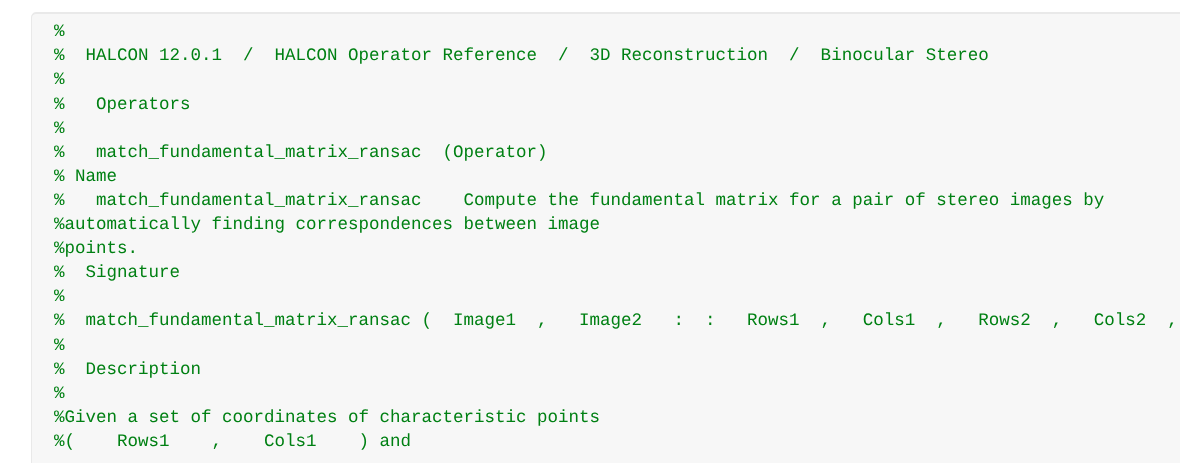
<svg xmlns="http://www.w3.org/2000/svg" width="1180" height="463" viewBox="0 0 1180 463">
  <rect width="100%" height="100%" fill="rgb(255,255,255)"/>
  <path d="M36 13H1180V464H31V18C31 15 33 13 36 13Z" fill="rgb(247,247,247)"/>
  <path d="M36 12H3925C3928 12 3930 15 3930 18V44H31V18C31 15 33 12 36 12ZM36 14H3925C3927 14 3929 15 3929 18V44H32V18C32 15 34 14 36 14Z" fill="rgb(233,233,233)" fill-rule="evenodd"/>
  <text x="54" y="36" font-family="Liberation Mono" font-size="17.5" fill="rgb(0,128,19)">%</text>
  <rect x="31" y="44" width="1" height="419" fill="rgb(233,233,233)"/>
  <g font-family="Liberation Mono" font-size="17.5" fill="rgb(0,128,19)">
    <text xml:space="preserve"><tspan x="54" y="60">%  HALCON 12.0.1  /  HALCON Operator Reference  /  3D Reconstruction  /  Binocular Stereo</tspan><tspan x="54" y="84">%</tspan><tspan x="54" y="109">%   Operators</tspan><tspan x="54" y="133">%</tspan><tspan x="54" y="157">%   match_fundamental_matrix_ransac  (Operator)</tspan><tspan x="54" y="181">% Name</tspan><tspan x="54" y="205">%   match_fundamental_matrix_ransac    Compute the fundamental matrix for a pair of stereo images by</tspan><tspan x="54" y="229">%automatically finding correspondences between image</tspan><tspan x="54" y="253">%points.</tspan><tspan x="54" y="277">%  Signature</tspan><tspan x="54" y="301">%</tspan><tspan x="54" y="325">%  match_fundamental_matrix_ransac (  Image1  ,   Image2   :  :   Rows1  ,   Cols1  ,   Rows2  ,   Cols2  ,</tspan><tspan x="54" y="350">%</tspan><tspan x="54" y="374">%  Description</tspan><tspan x="54" y="398">%</tspan><tspan x="54" y="422">%Given a set of coordinates of characteristic points</tspan><tspan x="54" y="446">%(    Rows1    ,    Cols1    ) and</tspan></text>
  </g>
</svg>
